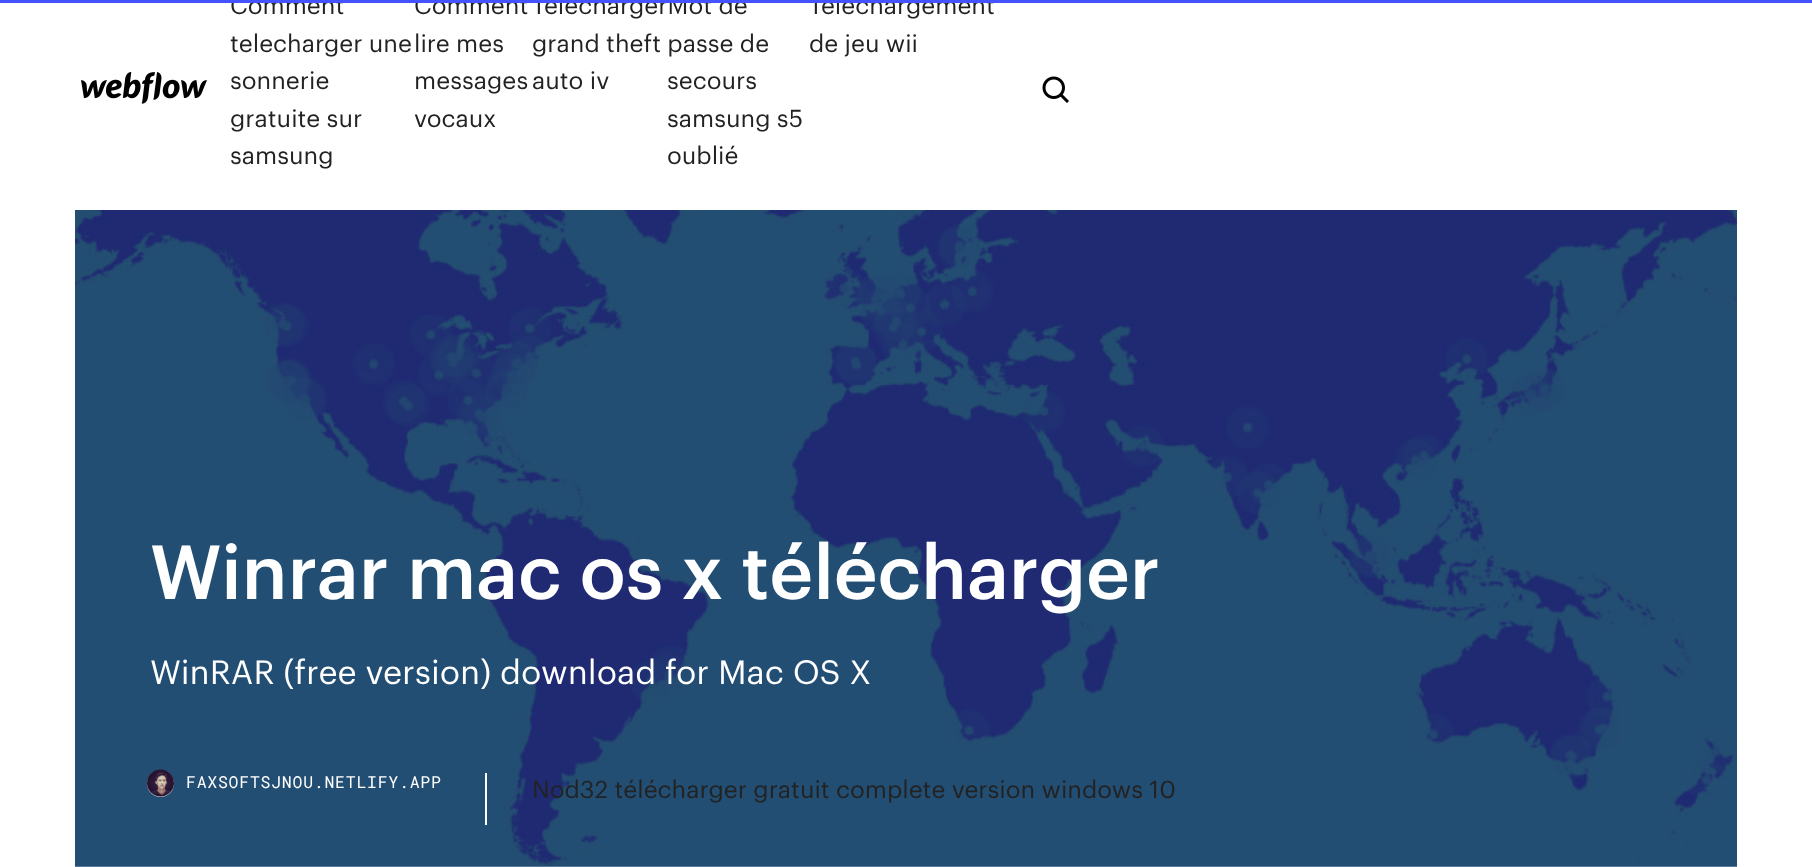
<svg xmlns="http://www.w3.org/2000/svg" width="1812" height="867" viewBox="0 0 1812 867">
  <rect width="100%" height="100%" fill="rgb(255,255,255)"/>
  <g font-family="Graphik" font-size="24" fill="rgb(34,34,34)">
    <text x="230" y="14">Comment</text>
    <text x="414" y="14">Comment</text>
    <text x="532" y="14">TelechargerMot de</text>
    <text x="809" y="14">Telechargement</text>
  </g>
  <rect x="0" y="0" width="1812" height="3" fill="rgb(67,83,255)"/>
  <image x="81" y="72" width="126" height="32" href="pic1.png"/>
  <g font-family="Graphik" font-size="24" fill="rgb(34,34,34)">
    <text>
      <tspan x="230" y="52">telecharger une</tspan>
      <tspan x="230" y="89">sonnerie</tspan>
      <tspan x="230" y="127">gratuite sur</tspan>
      <tspan x="230" y="164">samsung</tspan>
    </text>
    <text>
      <tspan x="414" y="52">lire mes</tspan>
      <tspan x="414" y="89">messages</tspan>
      <tspan x="414" y="127">vocaux</tspan>
    </text>
    <text>
      <tspan x="532" y="52">grand theft passe de</tspan>
      <tspan x="532" y="89">auto iv</tspan>
    </text>
    <text x="809" y="52">de jeu wii</text>
    <text>
      <tspan x="667" y="89">secours</tspan>
      <tspan x="667" y="127">samsung s5</tspan>
      <tspan x="667" y="164">oublié</tspan>
    </text>
  </g>
  <image x="1042" y="76" width="27" height="27" href="pic2.png"/>
  <image x="75" y="210" width="1662" height="657" href="pic3.png"/>
  <text x="150" y="599" font-family="Graphik" font-size="75" font-weight="500" fill="rgb(255,255,255)">Winrar mac os x télécharger</text>
  <text x="150" y="684" font-family="Graphik" font-size="33" fill="rgb(255,255,255)">WinRAR (free version) download for Mac OS X</text>
  <rect x="485" y="773" width="2" height="52" fill="rgb(255,255,255)"/>
  <circle cx="160.5" cy="783.5" r="13.5" fill="rgb(235,235,235)"/>
  <image x="147" y="769" width="27" height="28" href="pic4.png"/>
  <text x="186" y="788" font-family="Roboto Mono" font-size="16.5" letter-spacing="0.75" fill="rgb(255,255,255)">FAXSOFTSJNOU.NETLIFY.APP</text>
  <text x="532" y="798" font-family="Graphik" font-size="24" fill="rgb(34,34,34)">Nod32 télécharger gratuit complete version windows 10</text>
</svg>
